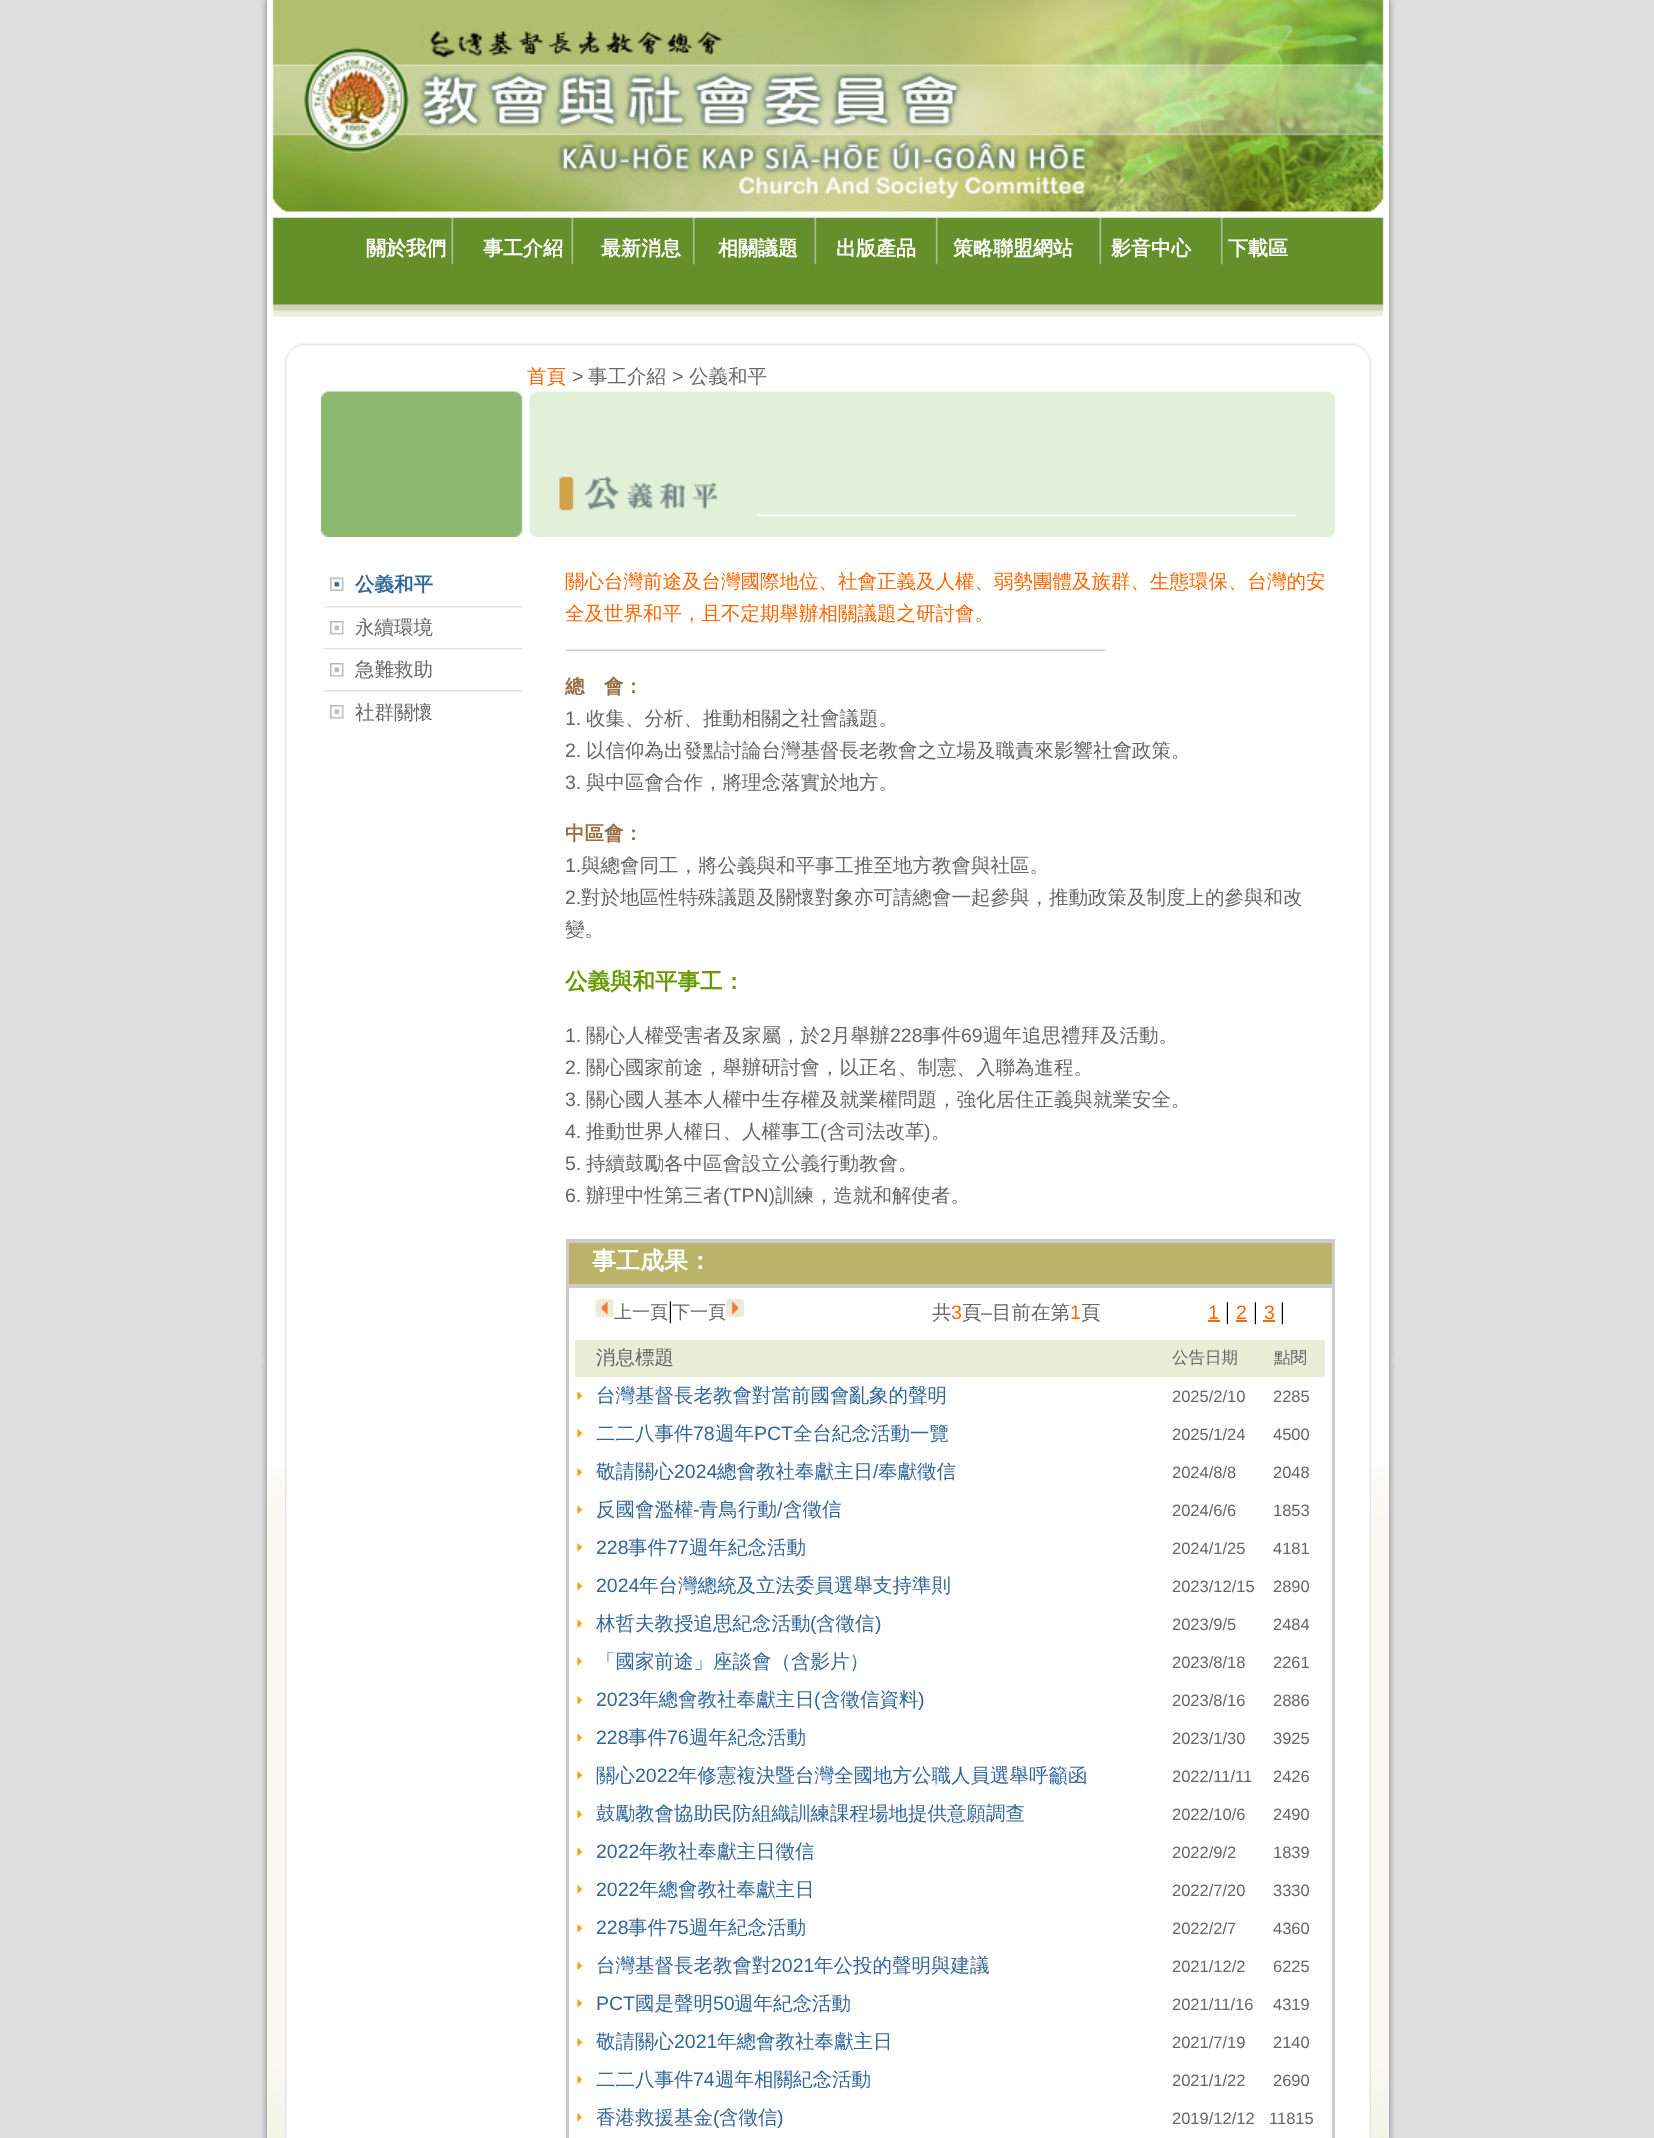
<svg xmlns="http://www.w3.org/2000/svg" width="1654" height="2138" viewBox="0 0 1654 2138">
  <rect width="100%" height="100%" fill="rgb(222,222,222)"/>
  <image x="258" y="0" width="9" height="2138" href="pic1.png"/>
  <rect x="267" y="0" width="1122" height="1466" fill="rgb(255,255,255)"/>
  <image x="272" y="217" width="1112" height="100" href="pic4.png"/>
  <image x="267" y="0" width="1117" height="218" href="pic2.png"/>
  <image x="1389" y="0" width="9" height="2138" href="pic3.png"/>
  <g font-family="WenQuanYi Zen Hei" font-size="20" font-weight="bold" fill="rgb(255,255,255)">
    <text x="366" y="255">關於我們</text>
    <text x="483" y="255">事工介紹</text>
    <text x="601" y="255">最新消息</text>
    <text x="718" y="255">相關議題</text>
    <text x="836" y="255">出版產品</text>
    <text x="953" y="255">策略聯盟網站</text>
    <text x="1111" y="255">影音中心</text>
    <text x="1228" y="255">下載區</text>
  </g>
  <image x="267" y="1466" width="1122" height="672" href="pic5.png"/>
  <image x="285" y="343" width="1086" height="17" href="pic6.png"/>
  <image x="285" y="360" width="18" height="1778" href="pic7.png"/>
  <rect x="303" y="1466" width="1050" height="672" fill="rgb(255,255,255)"/>
  <text x="527" y="383" font-family="WenQuanYi Zen Hei" font-size="19.5" font-weight="500" fill="rgb(255,102,0)">首頁</text>
  <text x="572" y="383" font-family="Liberation Sans" font-size="19.5" fill="rgb(102,102,102)">&gt;</text>
  <text x="588" y="383" font-family="WenQuanYi Zen Hei" font-size="19.5" font-weight="500" fill="rgb(102,102,102)">事工介紹</text>
  <text x="672" y="383" font-family="Liberation Sans" font-size="19.5" fill="rgb(102,102,102)">&gt;</text>
  <text x="689" y="383" font-family="WenQuanYi Zen Hei" font-size="19.5" font-weight="500" fill="rgb(102,102,102)">公義和平</text>
  <image x="321" y="391" width="1014" height="146" href="pic8.png"/>
  <image x="330" y="577" width="14" height="14" href="pic9.png"/>
  <text x="355" y="591" font-family="WenQuanYi Zen Hei" font-size="19.5" font-weight="bold" fill="rgb(51,102,153)">公義和平</text>
  <image x="324" y="606" width="198" height="2" href="pic10.png"/>
  <image x="330" y="621" width="14" height="14" href="pic11.png"/>
  <text x="355" y="634" font-family="WenQuanYi Zen Hei" font-size="19.5" font-weight="500" fill="rgb(102,102,102)">永續環境</text>
  <image x="324" y="648" width="198" height="2" href="pic10.png"/>
  <image x="330" y="663" width="14" height="14" href="pic11.png"/>
  <text x="355" y="676" font-family="WenQuanYi Zen Hei" font-size="19.5" font-weight="500" fill="rgb(102,102,102)">急難救助</text>
  <image x="324" y="690" width="198" height="2" href="pic10.png"/>
  <image x="330" y="705" width="14" height="14" href="pic11.png"/>
  <text x="355" y="719" font-family="WenQuanYi Zen Hei" font-size="19.5" font-weight="500" fill="rgb(102,102,102)">社群關懷</text>
  <g font-family="WenQuanYi Zen Hei" font-size="19.5" font-weight="500" fill="rgb(255,102,0)">
    <text>
      <tspan x="565" y="588">關心台灣前途及台灣國際地位、社會正義及人權、弱勢團體及族群、生態環保、台灣的安</tspan>
      <tspan x="565" y="620">全及世界和平，且不定期舉辦相關議題之研討會。</tspan>
    </text>
  </g>
  <image x="565" y="649" width="541" height="2" href="pic12.png"/>
  <text x="565" y="693" font-family="WenQuanYi Zen Hei" font-size="19.5" font-weight="bold" fill="rgb(152,109,67)">總　會：</text>
  <text x="565" y="725" font-family="Liberation Sans" font-size="19.5" fill="rgb(102,102,102)">1.</text>
  <text x="586" y="725" font-family="WenQuanYi Zen Hei" font-size="19.5" font-weight="500" fill="rgb(102,102,102)">收集、分析、推動相關之社會議題。</text>
  <text x="565" y="757" font-family="Liberation Sans" font-size="19.5" fill="rgb(102,102,102)">2.</text>
  <text x="586" y="757" font-family="WenQuanYi Zen Hei" font-size="19.5" font-weight="500" fill="rgb(102,102,102)">以信仰為出發點討論台灣基督長老教會之立場及職責來影響社會政策。</text>
  <text x="565" y="789" font-family="Liberation Sans" font-size="19.5" fill="rgb(102,102,102)">3.</text>
  <text x="586" y="789" font-family="WenQuanYi Zen Hei" font-size="19.5" font-weight="500" fill="rgb(102,102,102)">與中區會合作，將理念落實於地方。</text>
  <text x="565" y="840" font-family="WenQuanYi Zen Hei" font-size="19.5" font-weight="bold" fill="rgb(152,109,67)">中區會：</text>
  <text x="565" y="872" font-family="Liberation Sans" font-size="19.5" fill="rgb(102,102,102)">1.</text>
  <text x="581" y="872" font-family="WenQuanYi Zen Hei" font-size="19.5" font-weight="500" fill="rgb(102,102,102)">與總會同工，將公義與和平事工推至地方教會與社區。</text>
  <text x="565" y="904" font-family="Liberation Sans" font-size="19.5" fill="rgb(102,102,102)">2.</text>
  <g font-family="WenQuanYi Zen Hei" font-size="19.5" font-weight="500" fill="rgb(102,102,102)">
    <text x="581" y="904">對於地區性特殊議題及關懷對象亦可請總會一起參與，推動政策及制度上的參與和改</text>
    <text x="565" y="936">變。</text>
  </g>
  <text x="565" y="989" font-family="WenQuanYi Zen Hei" font-size="22.5" font-weight="bold" fill="rgb(102,153,0)">公義與和平事工：</text>
  <text x="565" y="1042" font-family="Liberation Sans" font-size="19.5" fill="rgb(102,102,102)">1.</text>
  <text x="586" y="1042" font-family="WenQuanYi Zen Hei" font-size="19.5" font-weight="500" fill="rgb(102,102,102)">關心人權受害者及家屬，於</text>
  <text x="820" y="1042" font-family="Liberation Sans" font-size="19.5" fill="rgb(102,102,102)">2</text>
  <text x="831" y="1042" font-family="WenQuanYi Zen Hei" font-size="19.5" font-weight="500" fill="rgb(102,102,102)">月舉辦</text>
  <text x="890" y="1042" font-family="Liberation Sans" font-size="19.5" fill="rgb(102,102,102)">228</text>
  <text x="922" y="1042" font-family="WenQuanYi Zen Hei" font-size="19.5" font-weight="500" fill="rgb(102,102,102)">事件</text>
  <text x="961" y="1042" font-family="Liberation Sans" font-size="19.5" fill="rgb(102,102,102)">69</text>
  <text x="983" y="1042" font-family="WenQuanYi Zen Hei" font-size="19.5" font-weight="500" fill="rgb(102,102,102)">週年追思禮拜及活動。</text>
  <text x="565" y="1074" font-family="Liberation Sans" font-size="19.5" fill="rgb(102,102,102)">2.</text>
  <text x="586" y="1074" font-family="WenQuanYi Zen Hei" font-size="19.5" font-weight="500" fill="rgb(102,102,102)">關心國家前途，舉辦研討會，以正名、制憲、入聯為進程。</text>
  <text x="565" y="1106" font-family="Liberation Sans" font-size="19.5" fill="rgb(102,102,102)">3.</text>
  <text x="586" y="1106" font-family="WenQuanYi Zen Hei" font-size="19.5" font-weight="500" fill="rgb(102,102,102)">關心國人基本人權中生存權及就業權問題，強化居住正義與就業安全。</text>
  <text x="565" y="1138" font-family="Liberation Sans" font-size="19.5" fill="rgb(102,102,102)">4.</text>
  <text x="586" y="1138" font-family="WenQuanYi Zen Hei" font-size="19.5" font-weight="500" fill="rgb(102,102,102)">推動世界人權日、人權事工</text>
  <text x="820" y="1138" font-family="Liberation Sans" font-size="19.5" fill="rgb(102,102,102)">(</text>
  <text x="827" y="1138" font-family="WenQuanYi Zen Hei" font-size="19.5" font-weight="500" fill="rgb(102,102,102)">含司法改革</text>
  <text x="924" y="1138" font-family="Liberation Sans" font-size="19.5" fill="rgb(102,102,102)">)</text>
  <text x="931" y="1138" font-family="WenQuanYi Zen Hei" font-size="19.5" font-weight="500" fill="rgb(102,102,102)">。</text>
  <text x="565" y="1170" font-family="Liberation Sans" font-size="19.5" fill="rgb(102,102,102)">5.</text>
  <text x="586" y="1170" font-family="WenQuanYi Zen Hei" font-size="19.5" font-weight="500" fill="rgb(102,102,102)">持續鼓勵各中區會設立公義行動教會。</text>
  <text x="565" y="1202" font-family="Liberation Sans" font-size="19.5" fill="rgb(102,102,102)">6.</text>
  <text x="586" y="1202" font-family="WenQuanYi Zen Hei" font-size="19.5" font-weight="500" fill="rgb(102,102,102)">辦理中性第三者</text>
  <text x="723" y="1202" font-family="Liberation Sans" font-size="19.5" fill="rgb(102,102,102)">(TPN)</text>
  <text x="775" y="1202" font-family="WenQuanYi Zen Hei" font-size="19.5" font-weight="500" fill="rgb(102,102,102)">訓練，造就和解使者。</text>
  <rect x="567" y="1240" width="767" height="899" fill="none" stroke="rgb(204,204,204)" stroke-width="2"/>
  <rect x="568" y="1242" width="765" height="43" fill="rgb(186,179,105)" stroke="rgb(204,204,204)" stroke-width="2"/>
  <text x="592" y="1269" font-family="WenQuanYi Zen Hei" font-size="24" font-weight="bold" fill="rgb(255,255,255)">事工成果：</text>
  <rect x="568" y="1287" width="765" height="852" fill="none" stroke="rgb(204,204,204)" stroke-width="2"/>
  <image x="595" y="1299" width="19" height="18" href="pic13.png"/>
  <text x="614" y="1318" font-family="WenQuanYi Zen Hei" font-size="18" font-weight="500" fill="rgb(102,102,102)">上一頁</text>
  <text x="668" y="1318" font-family="Liberation Serif" font-size="24" fill="rgb(0,0,0)">|</text>
  <text x="672" y="1318" font-family="WenQuanYi Zen Hei" font-size="18" font-weight="500" fill="rgb(102,102,102)">下一頁</text>
  <image x="726" y="1299" width="18" height="18" href="pic14.png"/>
  <text x="932" y="1319" font-family="WenQuanYi Zen Hei" font-size="19.5" font-weight="500" fill="rgb(102,102,102)">共</text>
  <text x="951" y="1319" font-family="Liberation Sans" font-size="19.5" fill="rgb(255,102,0)">3</text>
  <text x="962" y="1319" font-family="WenQuanYi Zen Hei" font-size="19.5" font-weight="500" fill="rgb(102,102,102)">頁</text>
  <text x="981" y="1319" font-family="Liberation Sans" font-size="19.5" fill="rgb(102,102,102)">–</text>
  <text x="992" y="1319" font-family="WenQuanYi Zen Hei" font-size="19.5" font-weight="500" fill="rgb(102,102,102)">目前在第</text>
  <text x="1070" y="1319" font-family="Liberation Sans" font-size="19.5" fill="rgb(255,102,0)">1</text>
  <text x="1081" y="1319" font-family="WenQuanYi Zen Hei" font-size="19.5" font-weight="500" fill="rgb(102,102,102)">頁</text>
  <text x="1208" y="1319" font-family="Liberation Sans" font-size="19.5" fill="rgb(255,102,0)">1</text>
  <rect x="1208" y="1320" width="12" height="2" fill="rgb(255,102,0)"/>
  <text x="1225" y="1319" font-family="Liberation Serif" font-size="24" fill="rgb(0,0,0)">|</text>
  <text x="1236" y="1319" font-family="Liberation Sans" font-size="19.5" fill="rgb(255,102,0)">2</text>
  <rect x="1236" y="1320" width="11" height="2" fill="rgb(255,102,0)"/>
  <text x="1253" y="1319" font-family="Liberation Serif" font-size="24" fill="rgb(0,0,0)">|</text>
  <text x="1264" y="1319" font-family="Liberation Sans" font-size="19.5" fill="rgb(255,102,0)">3</text>
  <rect x="1263" y="1320" width="12" height="2" fill="rgb(255,102,0)"/>
  <text x="1280" y="1319" font-family="Liberation Serif" font-size="24" fill="rgb(0,0,0)">|</text>
  <rect x="575" y="1340" width="750" height="37" fill="rgb(234,237,214)"/>
  <text x="596" y="1364" font-family="WenQuanYi Zen Hei" font-size="19.5" font-weight="500" fill="rgb(102,102,102)">消息標題</text>
  <g font-family="WenQuanYi Zen Hei" font-size="16.5" font-weight="500" fill="rgb(102,102,102)">
    <text x="1172" y="1363">公告日期</text>
    <text x="1274" y="1363">點閱</text>
  </g>
  <image x="577" y="1391" width="6" height="9" href="pic15.png"/>
  <text x="596" y="1402" font-family="WenQuanYi Zen Hei" font-size="19.5" font-weight="500" fill="rgb(51,102,153)">台灣基督長老教會對當前國會亂象的聲明</text>
  <g font-family="Liberation Sans" font-size="16.5" fill="rgb(102,102,102)">
    <text x="1172" y="1402">2025/2/10</text>
    <text x="1273" y="1402">2285</text>
  </g>
  <image x="577" y="1429" width="6" height="9" href="pic16.png"/>
  <text x="596" y="1440" font-family="WenQuanYi Zen Hei" font-size="19.5" font-weight="500" fill="rgb(51,102,153)">二二八事件</text>
  <text x="693" y="1440" font-family="Liberation Sans" font-size="19.5" fill="rgb(51,102,153)">78</text>
  <text x="715" y="1440" font-family="WenQuanYi Zen Hei" font-size="19.5" font-weight="500" fill="rgb(51,102,153)">週年</text>
  <text x="754" y="1440" font-family="Liberation Sans" font-size="19.5" fill="rgb(51,102,153)">PCT</text>
  <text x="793" y="1440" font-family="WenQuanYi Zen Hei" font-size="19.5" font-weight="500" fill="rgb(51,102,153)">全台紀念活動一覽</text>
  <g font-family="Liberation Sans" font-size="16.5" fill="rgb(102,102,102)">
    <text x="1172" y="1440">2025/1/24</text>
    <text x="1273" y="1440">4500</text>
  </g>
  <image x="577" y="1468" width="6" height="9" href="pic16.png"/>
  <text x="596" y="1478" font-family="WenQuanYi Zen Hei" font-size="19.5" font-weight="500" fill="rgb(51,102,153)">敬請關心</text>
  <text x="674" y="1478" font-family="Liberation Sans" font-size="19.5" fill="rgb(51,102,153)">2024</text>
  <text x="717" y="1478" font-family="WenQuanYi Zen Hei" font-size="19.5" font-weight="500" fill="rgb(51,102,153)">總會教社奉獻主日</text>
  <text x="873" y="1478" font-family="Liberation Sans" font-size="19.5" fill="rgb(51,102,153)">/</text>
  <text x="878" y="1478" font-family="WenQuanYi Zen Hei" font-size="19.5" font-weight="500" fill="rgb(51,102,153)">奉獻徵信</text>
  <g font-family="Liberation Sans" font-size="16.5" fill="rgb(102,102,102)">
    <text x="1172" y="1478">2024/8/8</text>
    <text x="1273" y="1478">2048</text>
  </g>
  <image x="577" y="1505" width="6" height="9" href="pic15.png"/>
  <text x="596" y="1516" font-family="WenQuanYi Zen Hei" font-size="19.5" font-weight="500" fill="rgb(51,102,153)">反國會濫權</text>
  <text x="693" y="1516" font-family="Liberation Sans" font-size="19.5" fill="rgb(51,102,153)">-</text>
  <text x="699" y="1516" font-family="WenQuanYi Zen Hei" font-size="19.5" font-weight="500" fill="rgb(51,102,153)">青鳥行動</text>
  <text x="777" y="1516" font-family="Liberation Sans" font-size="19.5" fill="rgb(51,102,153)">/</text>
  <text x="783" y="1516" font-family="WenQuanYi Zen Hei" font-size="19.5" font-weight="500" fill="rgb(51,102,153)">含徵信</text>
  <g font-family="Liberation Sans" font-size="16.5" fill="rgb(102,102,102)">
    <text x="1172" y="1516">2024/6/6</text>
    <text x="1273" y="1516">1853</text>
  </g>
  <image x="577" y="1543" width="6" height="9" href="pic16.png"/>
  <text x="596" y="1554" font-family="Liberation Sans" font-size="19.5" fill="rgb(51,102,153)">228</text>
  <text x="628" y="1554" font-family="WenQuanYi Zen Hei" font-size="19.5" font-weight="500" fill="rgb(51,102,153)">事件</text>
  <text x="667" y="1554" font-family="Liberation Sans" font-size="19.5" fill="rgb(51,102,153)">77</text>
  <text x="689" y="1554" font-family="WenQuanYi Zen Hei" font-size="19.5" font-weight="500" fill="rgb(51,102,153)">週年紀念活動</text>
  <g font-family="Liberation Sans" font-size="16.5" fill="rgb(102,102,102)">
    <text x="1172" y="1554">2024/1/25</text>
    <text x="1273" y="1554">4181</text>
  </g>
  <image x="577" y="1582" width="6" height="9" href="pic16.png"/>
  <text x="596" y="1592" font-family="Liberation Sans" font-size="19.5" fill="rgb(51,102,153)">2024</text>
  <text x="639" y="1592" font-family="WenQuanYi Zen Hei" font-size="19.5" font-weight="500" fill="rgb(51,102,153)">年台灣總統及立法委員選舉支持準則</text>
  <g font-family="Liberation Sans" font-size="16.5" fill="rgb(102,102,102)">
    <text x="1172" y="1592">2023/12/15</text>
    <text x="1273" y="1592">2890</text>
  </g>
  <image x="577" y="1619" width="6" height="9" href="pic15.png"/>
  <text x="596" y="1630" font-family="WenQuanYi Zen Hei" font-size="19.5" font-weight="500" fill="rgb(51,102,153)">林哲夫教授追思紀念活動</text>
  <text x="810" y="1630" font-family="Liberation Sans" font-size="19.5" fill="rgb(51,102,153)">(</text>
  <text x="816" y="1630" font-family="WenQuanYi Zen Hei" font-size="19.5" font-weight="500" fill="rgb(51,102,153)">含徵信</text>
  <text x="875" y="1630" font-family="Liberation Sans" font-size="19.5" fill="rgb(51,102,153)">)</text>
  <g font-family="Liberation Sans" font-size="16.5" fill="rgb(102,102,102)">
    <text x="1172" y="1630">2023/9/5</text>
    <text x="1273" y="1630">2484</text>
  </g>
  <image x="577" y="1657" width="6" height="9" href="pic16.png"/>
  <text x="596" y="1668" font-family="WenQuanYi Zen Hei" font-size="19.5" font-weight="500" fill="rgb(51,102,153)">「國家前途」座談會（含影片）</text>
  <g font-family="Liberation Sans" font-size="16.5" fill="rgb(102,102,102)">
    <text x="1172" y="1668">2023/8/18</text>
    <text x="1273" y="1668">2261</text>
  </g>
  <image x="577" y="1696" width="6" height="9" href="pic16.png"/>
  <text x="596" y="1706" font-family="Liberation Sans" font-size="19.5" fill="rgb(51,102,153)">2023</text>
  <text x="639" y="1706" font-family="WenQuanYi Zen Hei" font-size="19.5" font-weight="500" fill="rgb(51,102,153)">年總會教社奉獻主日</text>
  <text x="814" y="1706" font-family="Liberation Sans" font-size="19.5" fill="rgb(51,102,153)">(</text>
  <text x="821" y="1706" font-family="WenQuanYi Zen Hei" font-size="19.5" font-weight="500" fill="rgb(51,102,153)">含徵信資料</text>
  <text x="918" y="1706" font-family="Liberation Sans" font-size="19.5" fill="rgb(51,102,153)">)</text>
  <g font-family="Liberation Sans" font-size="16.5" fill="rgb(102,102,102)">
    <text x="1172" y="1706">2023/8/16</text>
    <text x="1273" y="1706">2886</text>
  </g>
  <image x="577" y="1733" width="6" height="9" href="pic15.png"/>
  <text x="596" y="1744" font-family="Liberation Sans" font-size="19.5" fill="rgb(51,102,153)">228</text>
  <text x="628" y="1744" font-family="WenQuanYi Zen Hei" font-size="19.5" font-weight="500" fill="rgb(51,102,153)">事件</text>
  <text x="667" y="1744" font-family="Liberation Sans" font-size="19.5" fill="rgb(51,102,153)">76</text>
  <text x="689" y="1744" font-family="WenQuanYi Zen Hei" font-size="19.5" font-weight="500" fill="rgb(51,102,153)">週年紀念活動</text>
  <g font-family="Liberation Sans" font-size="16.5" fill="rgb(102,102,102)">
    <text x="1172" y="1744">2023/1/30</text>
    <text x="1273" y="1744">3925</text>
  </g>
  <image x="577" y="1771" width="6" height="9" href="pic16.png"/>
  <text x="596" y="1782" font-family="WenQuanYi Zen Hei" font-size="19.5" font-weight="500" fill="rgb(51,102,153)">關心</text>
  <text x="635" y="1782" font-family="Liberation Sans" font-size="19.5" fill="rgb(51,102,153)">2022</text>
  <text x="678" y="1782" font-family="WenQuanYi Zen Hei" font-size="19.5" font-weight="500" fill="rgb(51,102,153)">年修憲複決暨台灣全國地方公職人員選舉呼籲函</text>
  <g font-family="Liberation Sans" font-size="16.5" fill="rgb(102,102,102)">
    <text x="1172" y="1782">2022/11/11</text>
    <text x="1273" y="1782">2426</text>
  </g>
  <image x="577" y="1810" width="6" height="9" href="pic16.png"/>
  <text x="596" y="1820" font-family="WenQuanYi Zen Hei" font-size="19.5" font-weight="500" fill="rgb(51,102,153)">鼓勵教會協助民防組織訓練課程場地提供意願調查</text>
  <g font-family="Liberation Sans" font-size="16.5" fill="rgb(102,102,102)">
    <text x="1172" y="1820">2022/10/6</text>
    <text x="1273" y="1820">2490</text>
  </g>
  <image x="577" y="1847" width="6" height="9" href="pic15.png"/>
  <text x="596" y="1858" font-family="Liberation Sans" font-size="19.5" fill="rgb(51,102,153)">2022</text>
  <text x="639" y="1858" font-family="WenQuanYi Zen Hei" font-size="19.5" font-weight="500" fill="rgb(51,102,153)">年教社奉獻主日徵信</text>
  <g font-family="Liberation Sans" font-size="16.5" fill="rgb(102,102,102)">
    <text x="1172" y="1858">2022/9/2</text>
    <text x="1273" y="1858">1839</text>
  </g>
  <image x="577" y="1885" width="6" height="9" href="pic16.png"/>
  <text x="596" y="1896" font-family="Liberation Sans" font-size="19.5" fill="rgb(51,102,153)">2022</text>
  <text x="639" y="1896" font-family="WenQuanYi Zen Hei" font-size="19.5" font-weight="500" fill="rgb(51,102,153)">年總會教社奉獻主日</text>
  <g font-family="Liberation Sans" font-size="16.5" fill="rgb(102,102,102)">
    <text x="1172" y="1896">2022/7/20</text>
    <text x="1273" y="1896">3330</text>
  </g>
  <image x="577" y="1924" width="6" height="9" href="pic16.png"/>
  <text x="596" y="1934" font-family="Liberation Sans" font-size="19.5" fill="rgb(51,102,153)">228</text>
  <text x="628" y="1934" font-family="WenQuanYi Zen Hei" font-size="19.5" font-weight="500" fill="rgb(51,102,153)">事件</text>
  <text x="667" y="1934" font-family="Liberation Sans" font-size="19.5" fill="rgb(51,102,153)">75</text>
  <text x="689" y="1934" font-family="WenQuanYi Zen Hei" font-size="19.5" font-weight="500" fill="rgb(51,102,153)">週年紀念活動</text>
  <g font-family="Liberation Sans" font-size="16.5" fill="rgb(102,102,102)">
    <text x="1172" y="1934">2022/2/7</text>
    <text x="1273" y="1934">4360</text>
  </g>
  <image x="577" y="1961" width="6" height="9" href="pic15.png"/>
  <text x="596" y="1972" font-family="WenQuanYi Zen Hei" font-size="19.5" font-weight="500" fill="rgb(51,102,153)">台灣基督長老教會對</text>
  <text x="771" y="1972" font-family="Liberation Sans" font-size="19.5" fill="rgb(51,102,153)">2021</text>
  <text x="814" y="1972" font-family="WenQuanYi Zen Hei" font-size="19.5" font-weight="500" fill="rgb(51,102,153)">年公投的聲明與建議</text>
  <g font-family="Liberation Sans" font-size="16.5" fill="rgb(102,102,102)">
    <text x="1172" y="1972">2021/12/2</text>
    <text x="1273" y="1972">6225</text>
  </g>
  <image x="577" y="1999" width="6" height="9" href="pic16.png"/>
  <text x="596" y="2010" font-family="Liberation Sans" font-size="19.5" fill="rgb(51,102,153)">PCT</text>
  <text x="635" y="2010" font-family="WenQuanYi Zen Hei" font-size="19.5" font-weight="500" fill="rgb(51,102,153)">國是聲明</text>
  <text x="713" y="2010" font-family="Liberation Sans" font-size="19.5" fill="rgb(51,102,153)">50</text>
  <text x="734" y="2010" font-family="WenQuanYi Zen Hei" font-size="19.5" font-weight="500" fill="rgb(51,102,153)">週年紀念活動</text>
  <g font-family="Liberation Sans" font-size="16.5" fill="rgb(102,102,102)">
    <text x="1172" y="2010">2021/11/16</text>
    <text x="1273" y="2010">4319</text>
  </g>
  <image x="577" y="2038" width="6" height="9" href="pic16.png"/>
  <text x="596" y="2048" font-family="WenQuanYi Zen Hei" font-size="19.5" font-weight="500" fill="rgb(51,102,153)">敬請關心</text>
  <text x="674" y="2048" font-family="Liberation Sans" font-size="19.5" fill="rgb(51,102,153)">2021</text>
  <text x="717" y="2048" font-family="WenQuanYi Zen Hei" font-size="19.5" font-weight="500" fill="rgb(51,102,153)">年總會教社奉獻主日</text>
  <g font-family="Liberation Sans" font-size="16.5" fill="rgb(102,102,102)">
    <text x="1172" y="2048">2021/7/19</text>
    <text x="1273" y="2048">2140</text>
  </g>
  <image x="577" y="2075" width="6" height="9" href="pic15.png"/>
  <text x="596" y="2086" font-family="WenQuanYi Zen Hei" font-size="19.5" font-weight="500" fill="rgb(51,102,153)">二二八事件</text>
  <text x="693" y="2086" font-family="Liberation Sans" font-size="19.5" fill="rgb(51,102,153)">74</text>
  <text x="715" y="2086" font-family="WenQuanYi Zen Hei" font-size="19.5" font-weight="500" fill="rgb(51,102,153)">週年相關紀念活動</text>
  <g font-family="Liberation Sans" font-size="16.5" fill="rgb(102,102,102)">
    <text x="1172" y="2086">2021/1/22</text>
    <text x="1273" y="2086">2690</text>
  </g>
  <image x="577" y="2113" width="6" height="9" href="pic16.png"/>
  <text x="596" y="2124" font-family="WenQuanYi Zen Hei" font-size="19.5" font-weight="500" fill="rgb(51,102,153)">香港救援基金</text>
  <text x="713" y="2124" font-family="Liberation Sans" font-size="19.5" fill="rgb(51,102,153)">(</text>
  <text x="719" y="2124" font-family="WenQuanYi Zen Hei" font-size="19.5" font-weight="500" fill="rgb(51,102,153)">含徵信</text>
  <text x="777" y="2124" font-family="Liberation Sans" font-size="19.5" fill="rgb(51,102,153)">)</text>
  <g font-family="Liberation Sans" font-size="16.5" fill="rgb(102,102,102)">
    <text x="1172" y="2124">2019/12/12</text>
    <text x="1269" y="2124">11815</text>
  </g>
  <image x="1353" y="360" width="18" height="1778" href="pic17.png"/>
</svg>
